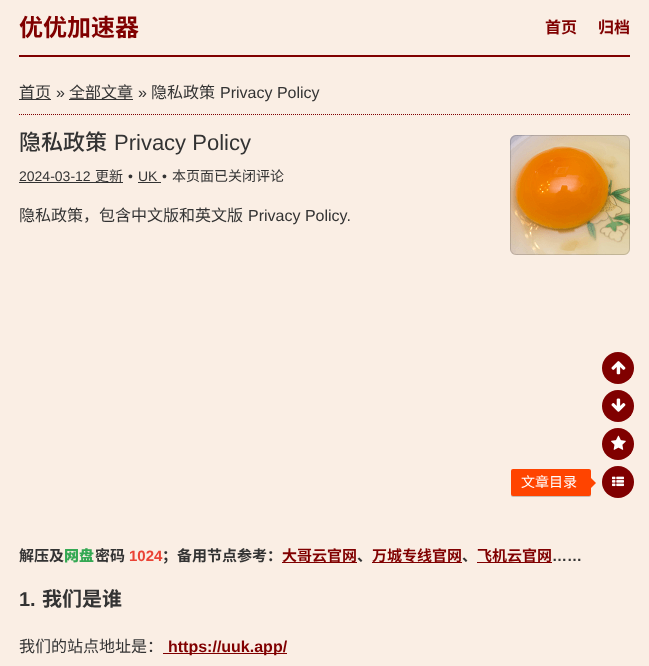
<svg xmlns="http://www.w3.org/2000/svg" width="649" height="666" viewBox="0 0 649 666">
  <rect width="100%" height="100%" fill="rgb(250,238,228)"/>
  <rect x="19" y="55" width="611" height="2" fill="rgb(128,0,0)"/>
  <text x="19" y="36" font-family="Noto Sans CJK SC" font-size="24" font-weight="bold" fill="rgb(128,0,0)">优优加速器</text>
  <g font-family="Noto Sans CJK SC" font-size="16" font-weight="bold" fill="rgb(128,0,0)">
    <text x="545" y="33">首页</text>
    <text x="598" y="33">归档</text>
  </g>
  <path d="M19 114.5H630" fill="none" stroke="rgb(128,0,0)" stroke-dasharray="1 1"/>
  <rect x="19" y="99" width="32" height="1" fill="rgb(51,51,51)"/>
  <text x="19" y="98" font-family="Noto Sans CJK SC" font-size="16" fill="rgb(51,51,51)">首页</text>
  <text x="56" y="98" font-family="Liberation Sans" font-size="16" fill="rgb(51,51,51)">»</text>
  <rect x="69" y="99" width="64" height="1" fill="rgb(51,51,51)"/>
  <text x="69" y="98" font-family="Noto Sans CJK SC" font-size="16" fill="rgb(51,51,51)">全部文章</text>
  <text x="138" y="98" font-family="Liberation Sans" font-size="16" fill="rgb(51,51,51)">»</text>
  <text x="151" y="98" font-family="Noto Sans CJK SC" font-size="16" fill="rgb(51,51,51)">隐私政策</text>
  <text x="220" y="98" font-family="Liberation Sans" font-size="16" fill="rgb(51,51,51)">Privacy Policy</text>
  <text x="19" y="150" font-family="Noto Sans CJK SC" font-size="22" font-weight="500" fill="rgb(51,51,51)">隐私政策</text>
  <text x="114" y="150" font-family="Liberation Sans" font-size="22" fill="rgb(51,51,51)">Privacy Policy</text>
  <image x="510" y="135" width="120" height="120" href="pic1.png"/>
  <rect x="510.5" y="135.5" width="119" height="119" rx="5.5" fill="none" stroke="rgba(0,0,0,0.15)"/>
  <text x="19" y="181" font-family="Liberation Sans" font-size="14" fill="rgb(51,51,51)">2024-03-12</text>
  <rect x="19" y="182" width="104" height="1" fill="rgb(51,51,51)"/>
  <text x="95" y="181" font-family="Noto Sans CJK SC" font-size="14" fill="rgb(51,51,51)">更新</text>
  <g font-family="Liberation Sans" font-size="14" fill="rgb(51,51,51)">
    <text x="128" y="181">•</text>
    <text x="138" y="181">UK</text>
  </g>
  <rect x="138" y="182" width="23" height="1" fill="rgb(51,51,51)"/>
  <text x="162" y="181" font-family="Liberation Sans" font-size="14" fill="rgb(51,51,51)">•</text>
  <text x="172" y="181" font-family="Noto Sans CJK SC" font-size="14" fill="rgb(51,51,51)">本页面已关闭评论</text>
  <text x="19" y="221" font-family="Noto Sans CJK SC" font-size="16" fill="rgb(51,51,51)">隐私政策，包含中文版和英文版</text>
  <text x="248" y="221" font-family="Liberation Sans" font-size="16" fill="rgb(51,51,51)">Privacy Policy.</text>
  <text x="19" y="561" font-family="Noto Sans CJK SC" font-size="15" font-weight="bold" fill="rgb(51,51,51)">解压及</text>
  <text x="64" y="561" font-family="Noto Sans CJK SC" font-size="15" font-weight="900" fill="rgb(52,168,83)">网盘</text>
  <text x="95" y="561" font-family="Noto Sans CJK SC" font-size="15" font-weight="bold" fill="rgb(51,51,51)">密码</text>
  <text x="129" y="561" font-family="Liberation Sans" font-size="15" font-weight="bold" fill="rgb(234,67,53)">1024</text>
  <text x="162" y="561" font-family="Noto Sans CJK SC" font-size="15" font-weight="bold" fill="rgb(51,51,51)">；备用节点参考：</text>
  <rect x="282" y="562" width="75" height="1" fill="rgb(128,0,0)"/>
  <text x="282" y="561" font-family="Noto Sans CJK SC" font-size="15" font-weight="bold" fill="rgb(128,0,0)">大哥云官网</text>
  <text x="357" y="561" font-family="Noto Sans CJK SC" font-size="15" font-weight="bold" fill="rgb(51,51,51)">、</text>
  <rect x="372" y="562" width="90" height="1" fill="rgb(128,0,0)"/>
  <text x="372" y="561" font-family="Noto Sans CJK SC" font-size="15" font-weight="bold" fill="rgb(128,0,0)">万城专线官网</text>
  <text x="462" y="561" font-family="Noto Sans CJK SC" font-size="15" font-weight="bold" fill="rgb(51,51,51)">、</text>
  <rect x="477" y="562" width="75" height="1" fill="rgb(128,0,0)"/>
  <text x="477" y="561" font-family="Noto Sans CJK SC" font-size="15" font-weight="bold" fill="rgb(128,0,0)">飞机云官网</text>
  <text x="552" y="561" font-family="Liberation Sans" font-size="15" font-weight="bold" fill="rgb(51,51,51)">……</text>
  <text x="19" y="606" font-family="Liberation Sans" font-size="20" font-weight="bold" fill="rgb(51,51,51)">1.</text>
  <text x="42" y="606" font-family="Noto Sans CJK SC" font-size="20" font-weight="bold" fill="rgb(51,51,51)">我们是谁</text>
  <text x="19" y="652" font-family="Noto Sans CJK SC" font-size="16" fill="rgb(51,51,51)">我们的站点地址是：</text>
  <rect x="163" y="653" width="124" height="1" fill="rgb(128,0,0)"/>
  <text x="168" y="652" font-family="Liberation Sans" font-size="16" font-weight="bold" fill="rgb(128,0,0)">https://uuk.app/</text>
  <circle cx="618" cy="368" r="16" fill="rgb(128,0,0)"/>
  <image x="611" y="361" width="15" height="14" href="pic2.png"/>
  <circle cx="618" cy="406" r="16" fill="rgb(128,0,0)"/>
  <image x="611" y="398" width="15" height="14" href="pic3.png"/>
  <circle cx="618" cy="444" r="16" fill="rgb(128,0,0)"/>
  <image x="611" y="435" width="15" height="15" href="pic4.png"/>
  <rect x="511" y="470" width="80" height="27" rx="2" fill="rgba(0,0,0,0.2)" filter="blur(0.5px)"/>
  <rect x="511" y="469" width="80" height="27" rx="2" fill="rgb(255,68,0)"/>
  <text x="521" y="487" font-family="Noto Sans CJK SC" font-size="14" fill="rgb(255,255,255)">文章目录</text>
  <path d="M601 488H591L596 483Z" fill="rgb(250,238,228)"/>
  <path d="M591 488V478L596 483Z" fill="rgb(255,68,0)"/>
  <circle cx="618" cy="482" r="16" fill="rgb(128,0,0)"/>
  <image x="612" y="476" width="12" height="11" href="pic5.png"/>
</svg>
